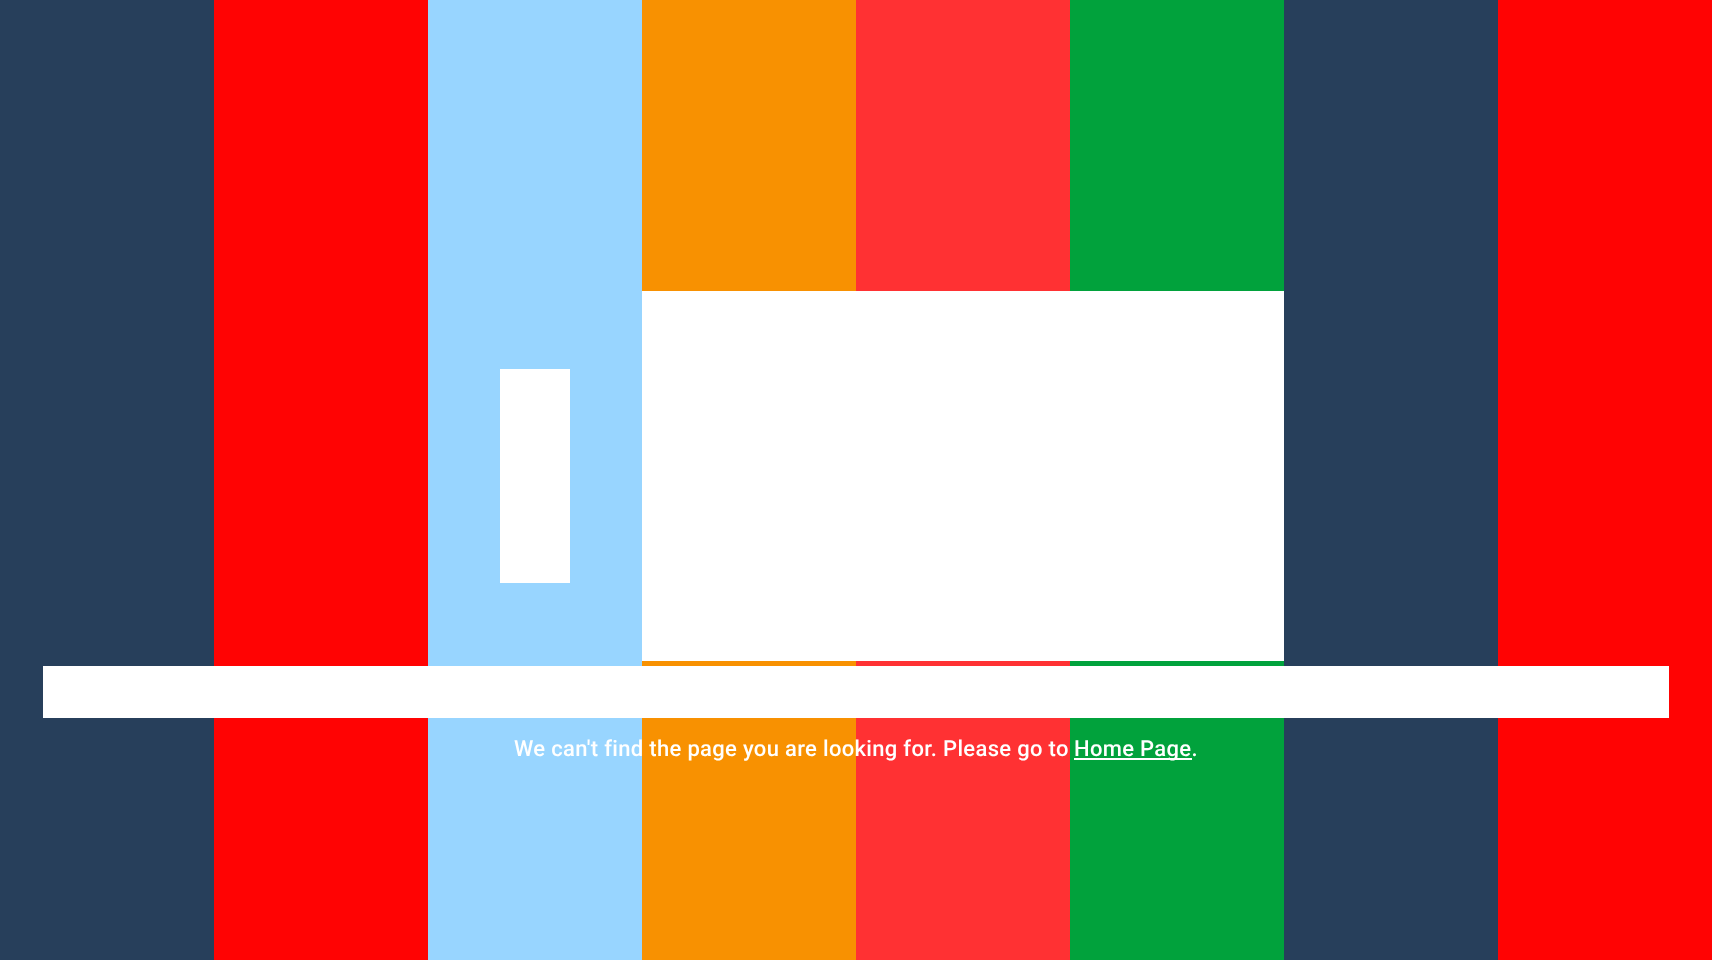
<svg xmlns="http://www.w3.org/2000/svg" width="1712" height="960" viewBox="0 0 1712 960">
  <rect width="100%" height="100%" fill="rgb(39,63,91)"/>
  <rect x="214" y="0" width="214" height="960" fill="rgb(255,3,3)"/>
  <rect x="428" y="0" width="214" height="960" fill="rgb(152,213,255)"/>
  <rect x="500" y="369" width="70" height="214" fill="rgb(255,255,255)"/>
  <rect x="642" y="0" width="214" height="960" fill="rgb(248,145,1)"/>
  <rect x="642" y="291" width="214" height="370" fill="rgb(255,255,255)"/>
  <rect x="856" y="0" width="214" height="960" fill="rgb(255,49,51)"/>
  <rect x="856" y="291" width="214" height="370" fill="rgb(255,255,255)"/>
  <rect x="1070" y="0" width="214" height="960" fill="rgb(1,162,60)"/>
  <rect x="1070" y="291" width="214" height="370" fill="rgb(255,255,255)"/>
  <rect x="1498" y="0" width="214" height="960" fill="rgb(255,3,3)"/>
  <rect x="43" y="666" width="1626" height="52" fill="rgb(255,255,255)"/>
  <text x="514" y="756" font-family="Roboto" font-size="22" font-weight="500" letter-spacing="0.32" fill="rgb(255,255,255)">We can't find the page you are looking for. Please go to</text>
  <rect x="1074" y="758" width="118" height="2" fill="rgb(255,255,255)"/>
  <text x="1074" y="756" font-family="Roboto" font-size="22" font-weight="500" letter-spacing="0.32" fill="rgb(255,255,255)">Home Page.</text>
</svg>
